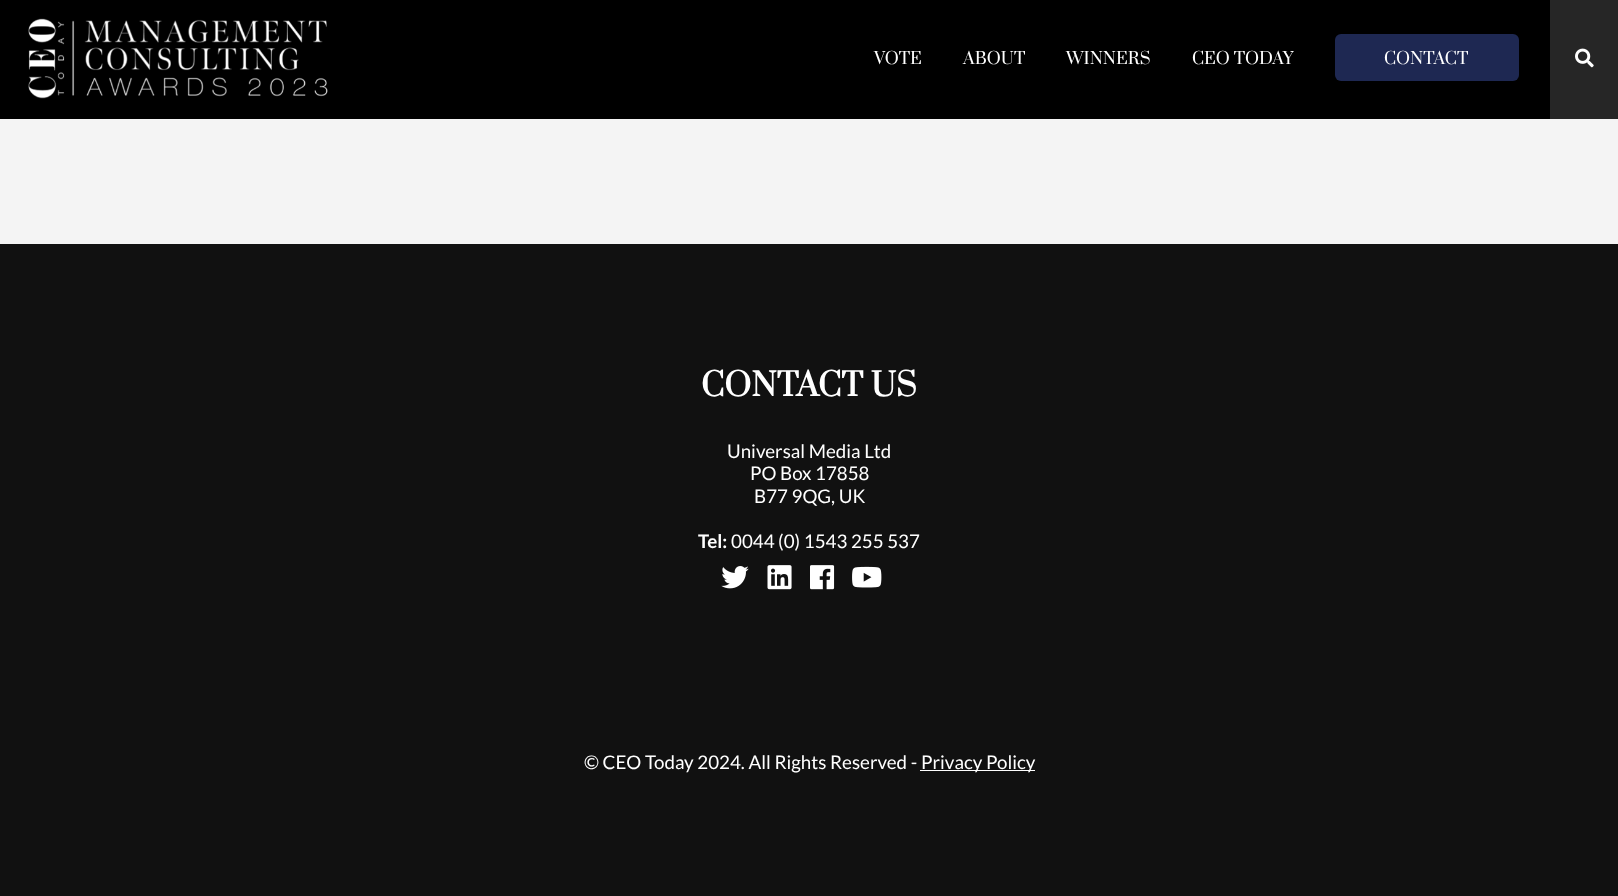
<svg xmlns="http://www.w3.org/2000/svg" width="1618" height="896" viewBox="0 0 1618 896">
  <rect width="100%" height="100%" fill="rgb(17,17,17)"/>
  <rect x="0" y="0" width="1550" height="119" fill="rgb(0,0,0)"/>
  <image x="28" y="18" width="300" height="81" href="pic1.png"/>
  <g font-family="Prata" font-size="16.25" fill="rgb(255,255,255)">
    <text x="874" y="64">VOTE</text>
    <text x="963" y="64">ABOUT</text>
    <text x="1066" y="64">WINNERS</text>
    <text x="1192" y="64">CEO TODAY</text>
  </g>
  <rect x="1335" y="34" width="184" height="47" rx="6" fill="rgb(30,40,82)"/>
  <text x="1384" y="64" font-family="Prata" font-size="16.25" fill="rgb(255,255,255)">CONTACT</text>
  <rect x="1550" y="0" width="68" height="119" fill="rgb(38,38,38)"/>
  <image x="1575" y="48" width="19" height="20" href="pic2.png"/>
  <rect x="0" y="119" width="1618" height="125" fill="rgb(244,244,244)"/>
  <text x="701" y="396" font-family="Prata" font-size="31.25" font-weight="bold" fill="rgb(255,255,255)">CONTACT US</text>
  <g font-family="Lato" font-size="18.75" fill="rgb(255,255,255)">
    <text x="727" y="458">Universal Media Ltd</text>
    <text x="750" y="480">PO Box 17858</text>
    <text x="754" y="503">B77 9QG, UK</text>
  </g>
  <text x="698" y="548" font-family="Lato" font-size="18.75" font-weight="bold" fill="rgb(255,255,255)">Tel:</text>
  <text x="731" y="548" font-family="Lato" font-size="18.75" fill="rgb(255,255,255)">0044 (0) 1543 255 537</text>
  <image x="721" y="566" width="28" height="23" href="pic3.png"/>
  <image x="767" y="565" width="25" height="25" href="pic4.png"/>
  <image x="810" y="565" width="25" height="25" href="pic5.png"/>
  <image x="852" y="566" width="30" height="22" href="pic6.png"/>
  <text x="584" y="769" font-family="Lato" font-size="18.75" fill="rgb(255,255,255)">© CEO Today 2024. All Rights Reserved -</text>
  <rect x="920" y="770" width="115" height="1" fill="rgb(255,255,255)"/>
  <text x="921" y="769" font-family="Lato" font-size="18.75" fill="rgb(255,255,255)">Privacy Policy</text>
</svg>
